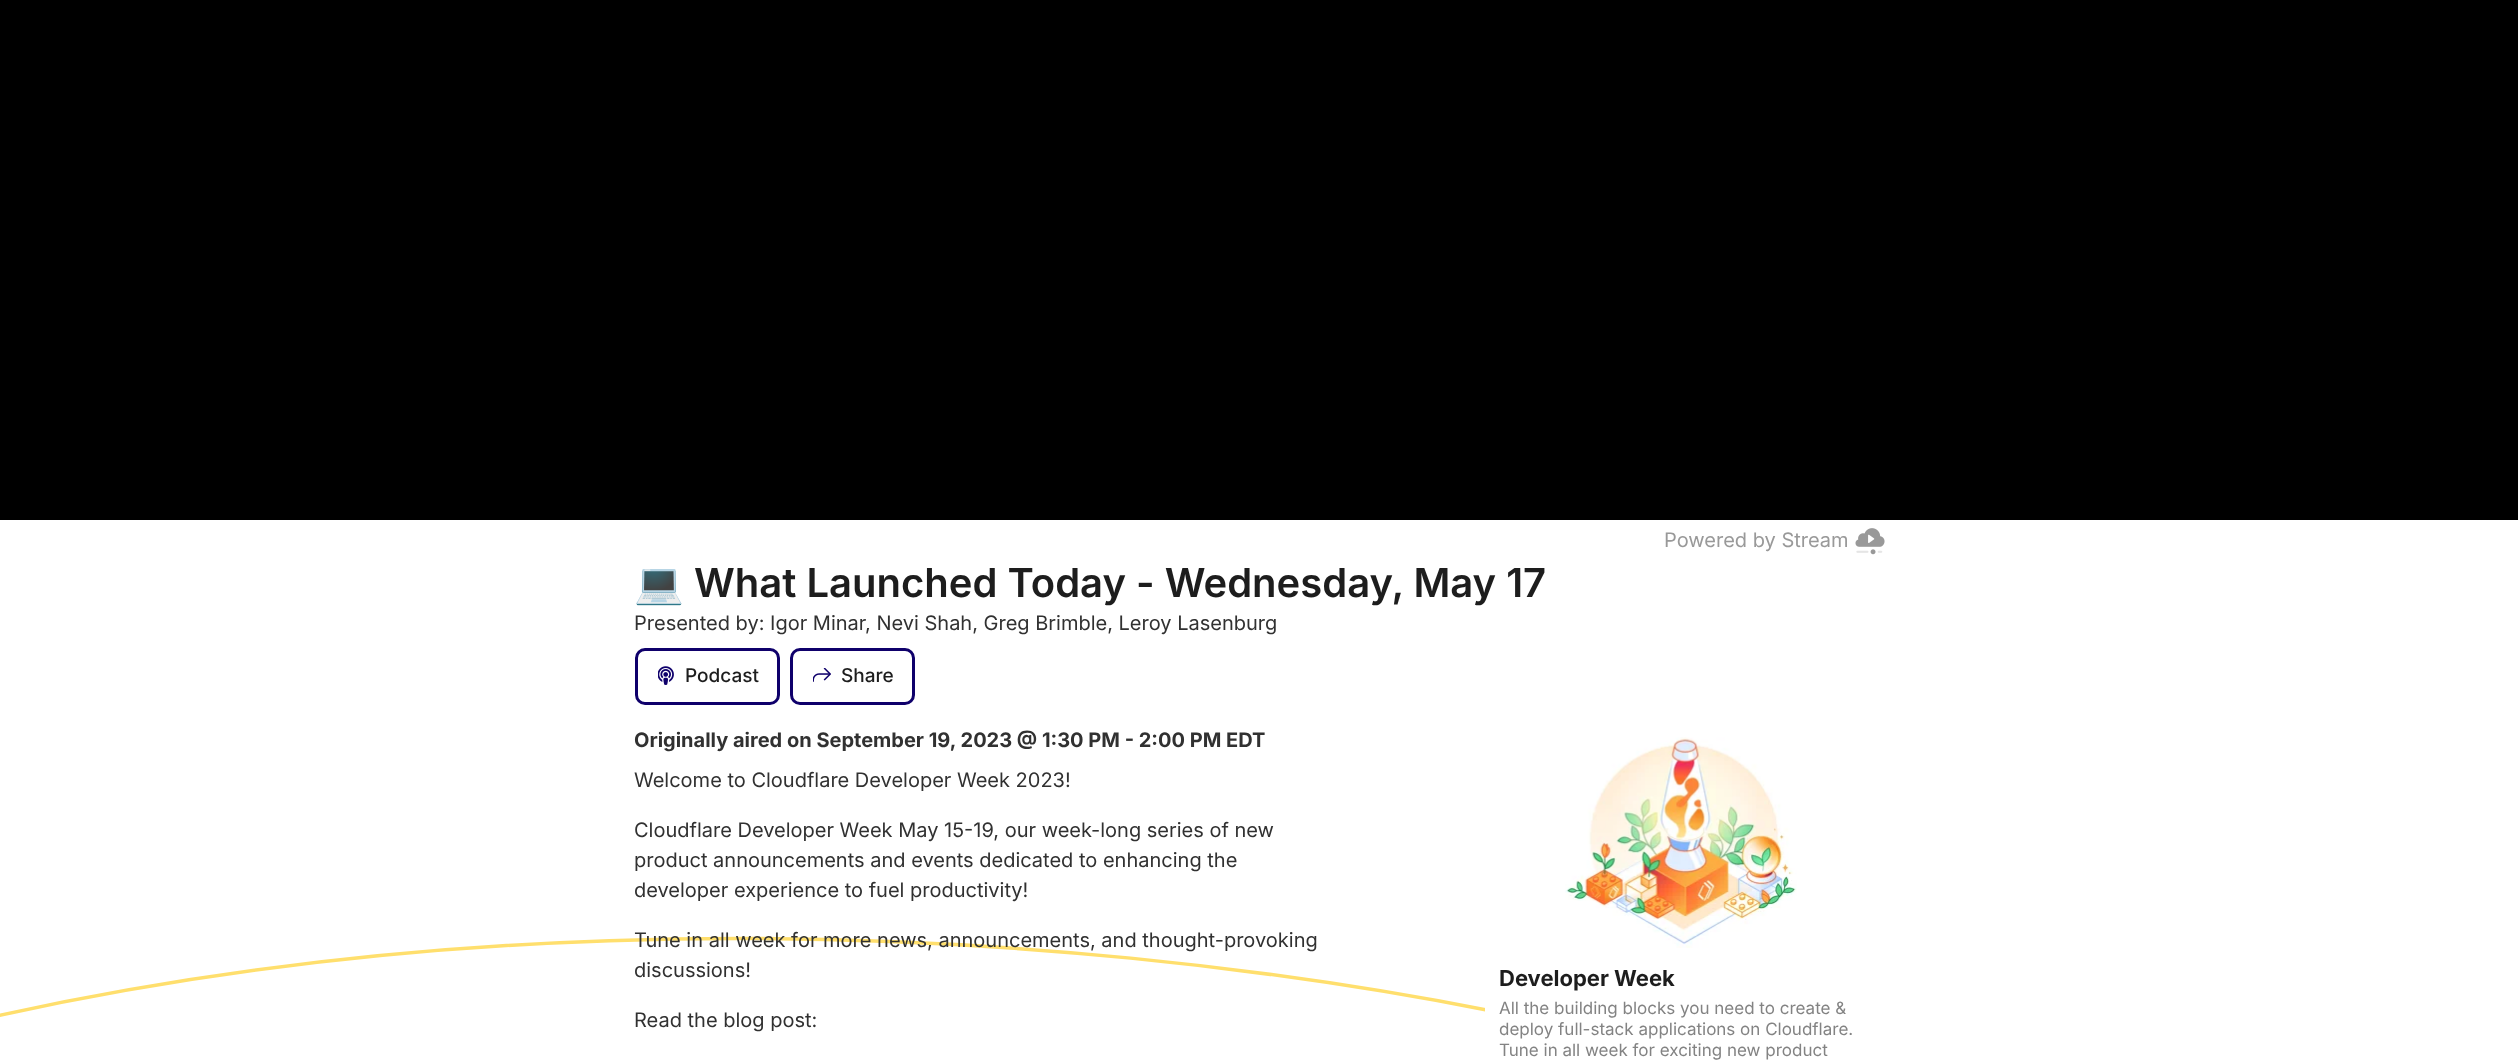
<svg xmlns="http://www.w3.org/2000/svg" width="2518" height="1062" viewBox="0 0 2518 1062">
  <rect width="100%" height="100%" fill="rgb(255,255,255)"/>
  <rect x="0" y="0" width="2518" height="520" fill="rgb(0,0,0)"/>
  <text x="1664" y="547" font-family="Inter" font-size="20" fill="rgb(153,153,153)">Powered by Stream</text>
  <image x="1855" y="528" width="30" height="27" href="pic1.png"/>
  <text x="634" y="597" font-family="Noto Color Emoji" font-size="40" font-weight="bold" fill="rgb(29,29,29)">💻</text>
  <text x="694" y="597" font-family="Inter" font-size="40" font-weight="600" fill="rgb(29,29,29)">What Launched Today - Wednesday, May 17</text>
  <text x="634" y="630" font-family="Inter" font-size="20" fill="rgb(49,49,49)">Presented by: Igor Minar, Nevi Shah, Greg Brimble, Leroy Lasenburg</text>
  <rect x="636.5" y="649.5" width="142" height="54" rx="8.5" fill="none" stroke="rgb(15,0,107)" stroke-width="3"/>
  <image x="658" y="666" width="16" height="19" href="pic2.png"/>
  <text x="685" y="682" font-family="Inter" font-size="19" font-weight="500" fill="rgb(29,29,29)">Podcast</text>
  <rect x="791.5" y="649.5" width="122" height="54" rx="8.5" fill="none" stroke="rgb(15,0,107)" stroke-width="3"/>
  <image x="813" y="668" width="18" height="14" href="pic3.png"/>
  <text x="841" y="682" font-family="Inter" font-size="19" font-weight="500" fill="rgb(29,29,29)">Share</text>
  <text x="634" y="747" font-family="Inter" font-size="20" font-weight="bold" fill="rgb(49,49,49)">Originally aired on September 19, 2023 @ 1:30 PM - 2:00 PM EDT</text>
  <g font-family="Inter" font-size="20" fill="rgb(49,49,49)">
    <text x="634" y="787">Welcome to Cloudflare Developer Week 2023!</text>
    <text>
      <tspan x="634" y="837">Cloudflare Developer Week May 15-19, our week-long series of new</tspan>
      <tspan x="634" y="867">product announcements and events dedicated to enhancing the</tspan>
      <tspan x="634" y="897">developer experience to fuel productivity!</tspan>
    </text>
  </g>
  <path d="M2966.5 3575L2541 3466C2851.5 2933.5 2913 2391 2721 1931C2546 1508.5 2153.5 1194.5 1627 1041.5C1627 1041.5 847.5 827.5-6 1016.5" fill="none" stroke="rgb(255,223,109)" stroke-width="3.5"/>
  <g font-family="Inter" font-size="20" fill="rgb(49,49,49)">
    <text>
      <tspan x="634" y="947">Tune in all week for more news, announcements, and thought-provoking</tspan>
      <tspan x="634" y="977">discussions!</tspan>
    </text>
    <text x="634" y="1027">Read the blog post:</text>
  </g>
  <rect x="1485" y="725" width="400" height="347" rx="10" fill="rgb(255,255,255)"/>
  <image x="1565" y="737" width="232" height="211" href="pic4.png"/>
  <text x="1499" y="986" font-family="Inter" font-size="22" font-weight="bold" fill="rgb(29,29,29)">Developer Week</text>
  <g font-family="Inter" font-size="17" fill="rgb(131,131,131)">
    <text>
      <tspan x="1499" y="1014">All the building blocks you need to create &amp;</tspan>
      <tspan x="1499" y="1035">deploy full-stack applications on Cloudflare.</tspan>
      <tspan x="1499" y="1056">Tune in all week for exciting new product</tspan>
    </text>
  </g>
</svg>
